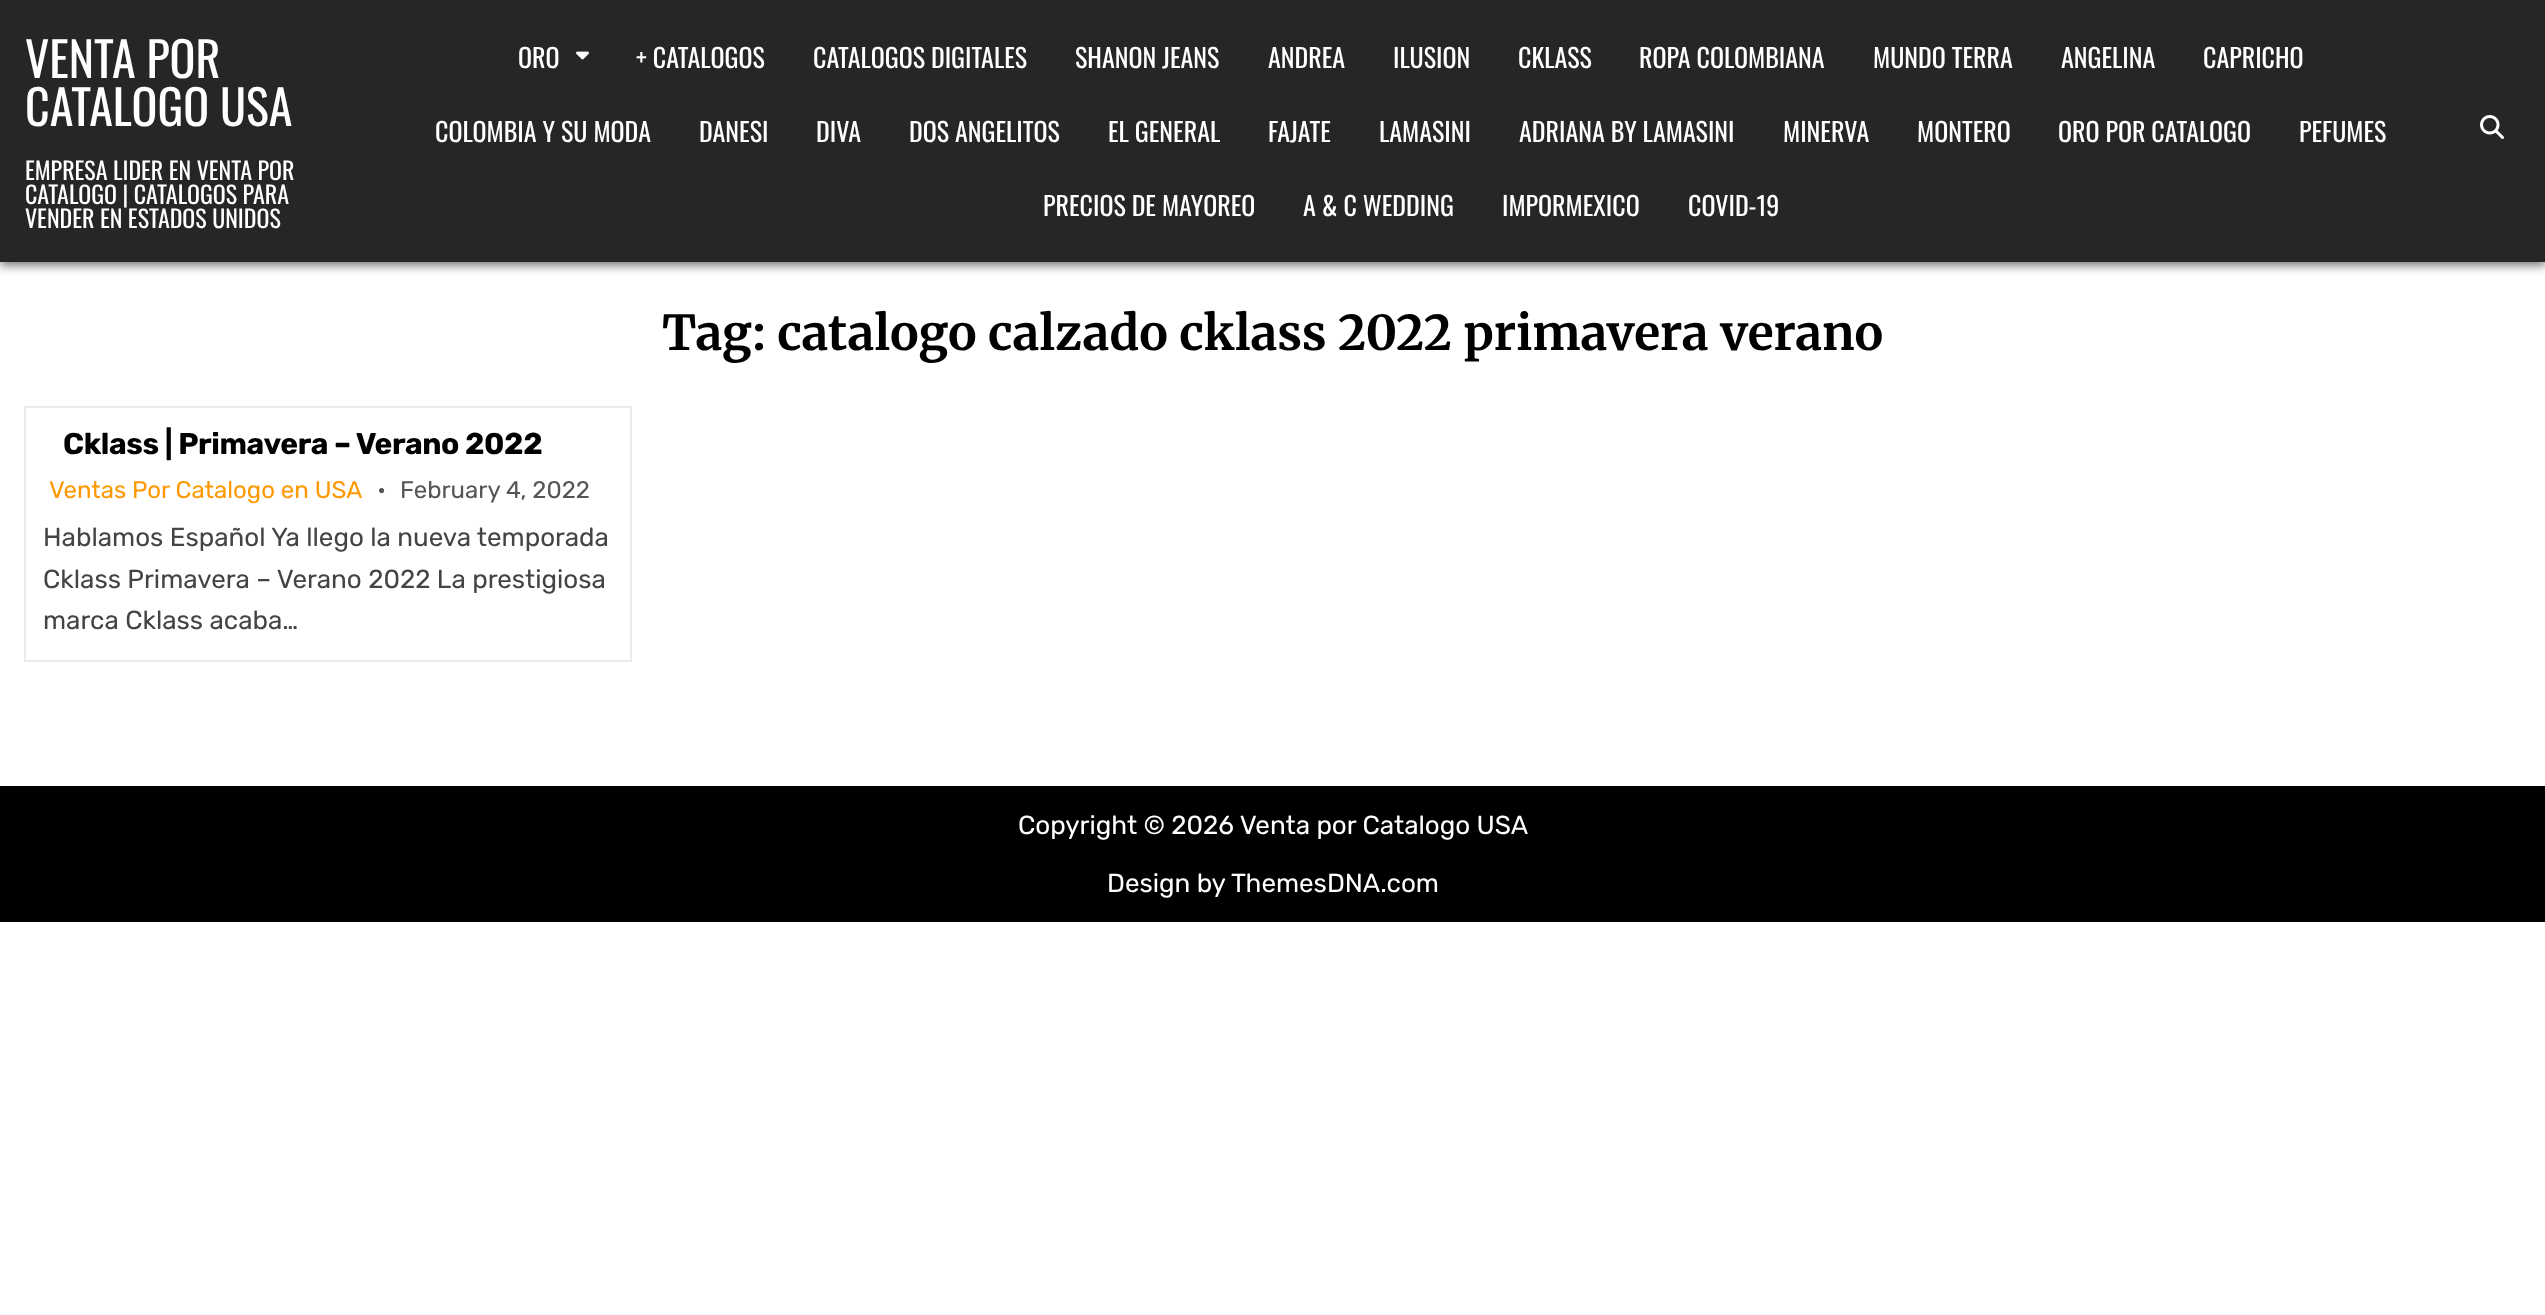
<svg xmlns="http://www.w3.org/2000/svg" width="2545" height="1315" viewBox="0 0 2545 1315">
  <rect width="100%" height="100%" fill="rgb(255,255,255)"/>
  <rect x="0" y="4" width="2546" height="262" fill="rgba(0,0,0,0.5)" filter="blur(5px)"/>
  <rect x="0" y="0" width="2545" height="262" fill="rgb(38,38,38)"/>
  <g font-family="Oswald" font-size="48" fill="rgb(255,255,255)">
    <text>
      <tspan x="25" y="78">VENTA POR</tspan>
      <tspan x="25" y="126">CATALOGO USA</tspan>
    </text>
  </g>
  <g font-family="Oswald" font-size="24" fill="rgb(255,255,255)">
    <text>
      <tspan x="25" y="180">EMPRESA LIDER EN VENTA POR</tspan>
      <tspan x="25" y="204">CATALOGO | CATALOGOS PARA</tspan>
      <tspan x="25" y="228">VENDER EN ESTADOS UNIDOS</tspan>
    </text>
  </g>
  <text x="518" y="68" font-family="Oswald" font-size="26" fill="rgb(255,255,255)">ORO</text>
  <image x="576" y="51" width="13" height="9" href="pic1.png"/>
  <g font-family="Oswald" font-size="26" fill="rgb(255,255,255)">
    <text x="636" y="68">+ CATALOGOS</text>
    <text x="813" y="68">CATALOGOS DIGITALES</text>
    <text x="1075" y="68">SHANON JEANS</text>
    <text x="1268" y="68">ANDREA</text>
    <text x="1393" y="68">ILUSION</text>
    <text x="1518" y="68">CKLASS</text>
    <text x="1639" y="68">ROPA COLOMBIANA</text>
    <text x="1873" y="68">MUNDO TERRA</text>
    <text x="2061" y="68">ANGELINA</text>
    <text x="2203" y="68">CAPRICHO</text>
    <text x="435" y="142">COLOMBIA Y SU MODA</text>
    <text x="699" y="142">DANESI</text>
    <text x="816" y="142">DIVA</text>
    <text x="909" y="142">DOS ANGELITOS</text>
    <text x="1108" y="142">EL GENERAL</text>
    <text x="1268" y="142">FAJATE</text>
    <text x="1379" y="142">LAMASINI</text>
    <text x="1519" y="142">ADRIANA BY LAMASINI</text>
    <text x="1783" y="142">MINERVA</text>
    <text x="1917" y="142">MONTERO</text>
    <text x="2058" y="142">ORO POR CATALOGO</text>
    <text x="2299" y="142">PEFUMES</text>
    <text x="1043" y="216">PRECIOS DE MAYOREO</text>
    <text x="1303" y="216">A &amp; C WEDDING</text>
    <text x="1502" y="216">IMPORMEXICO</text>
    <text x="1688" y="216">COVID-19</text>
  </g>
  <image x="2480" y="115" width="24" height="24" href="pic2.png"/>
  <text x="662" y="350" font-family="Merriweather" font-size="48" font-weight="bold" fill="rgb(0,0,0)">Tag: catalogo calzado cklass 2022 primavera verano</text>
  <rect x="25" y="407" width="606" height="254" fill="none" stroke="rgb(235,235,235)" stroke-width="2"/>
  <text x="63" y="454" font-family="Rubik" font-size="30" font-weight="bold" letter-spacing="-0.4" fill="rgb(0,0,0)">Cklass | Primavera – Verano 2022</text>
  <text x="49" y="498" font-family="Rubik" font-size="24" fill="rgb(255,152,0)">Ventas Por Catalogo en USA</text>
  <g font-family="Rubik" font-size="24" fill="rgb(85,85,85)">
    <text x="377" y="498">•</text>
    <text x="400" y="498">February 4, 2022</text>
  </g>
  <g font-family="Rubik" font-size="26" fill="rgb(68,68,68)">
    <text>
      <tspan x="43" y="546">Hablamos Español Ya llego la nueva temporada</tspan>
      <tspan x="43" y="588">Cklass Primavera – Verano 2022 La prestigiosa</tspan>
      <tspan x="43" y="629">marca Cklass acaba…</tspan>
    </text>
  </g>
  <rect x="0" y="786" width="2545" height="136" fill="rgb(0,0,0)"/>
  <g font-family="Rubik" font-size="26" fill="rgb(255,255,255)">
    <text x="1018" y="834">Copyright © 2026 Venta por Catalogo USA</text>
    <text x="1107" y="892">Design by ThemesDNA.com</text>
  </g>
</svg>
